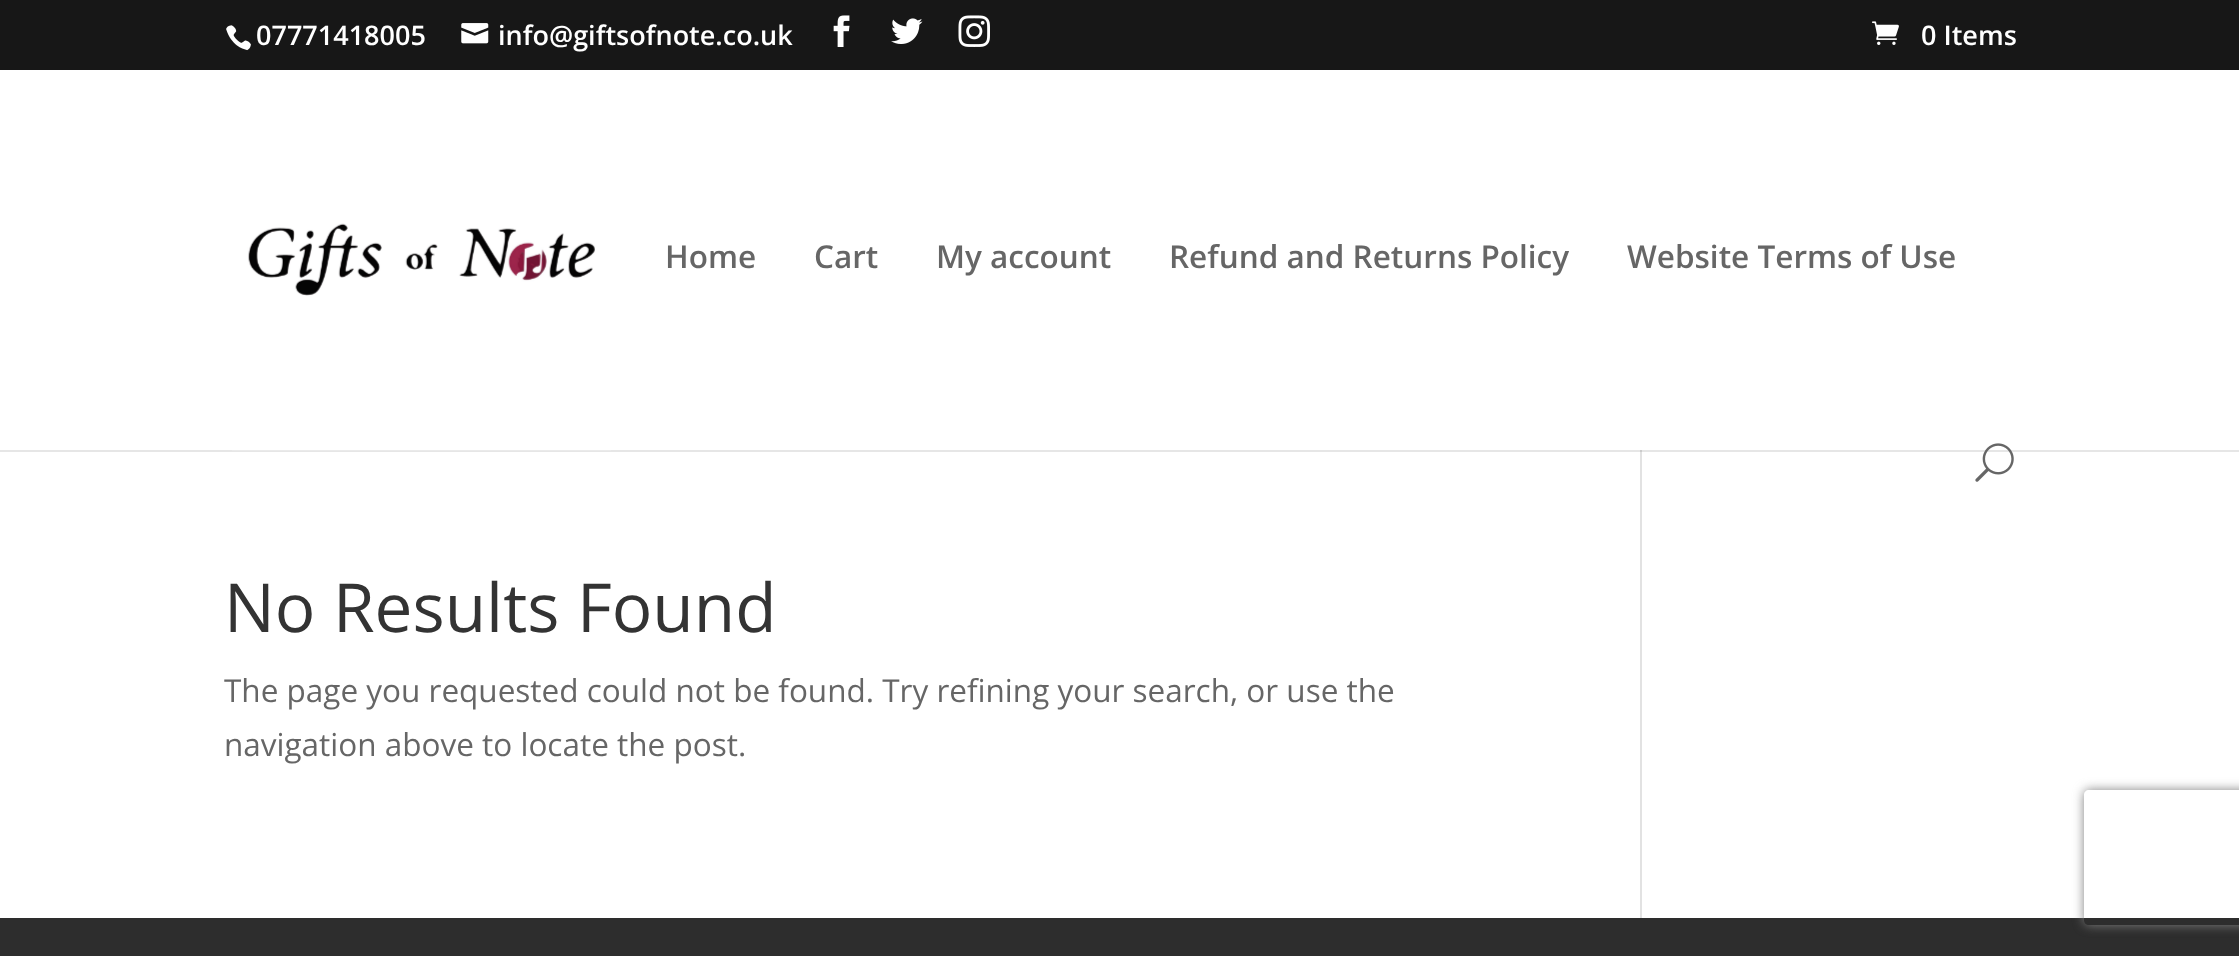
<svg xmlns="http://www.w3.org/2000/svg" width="2239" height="956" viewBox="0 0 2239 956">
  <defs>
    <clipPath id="clip1"><path d="M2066 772H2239V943H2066ZM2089 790H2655C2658 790 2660 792 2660 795V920C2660 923 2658 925 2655 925H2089C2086 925 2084 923 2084 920V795C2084 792 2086 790 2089 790Z" clip-rule="evenodd"/></clipPath>
  </defs>
  <rect width="100%" height="100%" fill="rgb(255,255,255)"/>
  <rect x="0" y="450" width="2239" height="2" fill="rgb(230,230,230)"/>
  <rect x="0" y="0" width="2239" height="70" fill="rgb(23,23,23)"/>
  <image x="226" y="25" width="25" height="26" href="pic1.png"/>
  <text x="256" y="45" font-family="Open Sans" font-size="27" font-weight="600" fill="rgb(255,255,255)">07771418005</text>
  <image x="461" y="23" width="28" height="21" href="pic2.png"/>
  <text x="498" y="45" font-family="Open Sans" font-size="27" font-weight="600" fill="rgb(255,255,255)">info@giftsofnote.co.uk</text>
  <image x="833" y="15" width="17" height="32" href="pic3.png"/>
  <image x="891" y="18" width="32" height="26" href="pic4.png"/>
  <image x="958" y="15" width="32" height="32" href="pic5.png"/>
  <image x="1872" y="21" width="27" height="24" href="pic6.png"/>
  <text x="1921" y="45" font-family="Open Sans" font-size="27" font-weight="600" fill="rgb(255,255,255)">0 Items</text>
  <image x="232" y="223" width="379" height="228" href="pic7.png"/>
  <g font-family="Open Sans" font-size="31.5" font-weight="600" fill="rgb(102,102,102)">
    <text x="665" y="268">Home</text>
    <text x="814" y="268">Cart</text>
    <text x="936" y="268">My account</text>
    <text x="1169" y="268">Refund and Returns Policy</text>
    <text x="1627" y="268">Website Terms of Use</text>
  </g>
  <image x="1975" y="443" width="39" height="39" href="pic8.png"/>
  <text x="224" y="632" font-family="Open Sans" font-size="67.5" fill="rgb(51,51,51)">No Results Found</text>
  <g font-family="Open Sans" font-size="31.5" fill="rgb(102,102,102)">
    <text>
      <tspan x="224" y="702">The page you requested could not be found. Try refining your search, or use the</tspan>
      <tspan x="224" y="756">navigation above to locate the post.</tspan>
    </text>
  </g>
  <rect x="1640" y="452" width="2" height="466" fill="rgb(226,226,226)"/>
  <rect x="1640" y="450" width="2" height="2" fill="rgb(203,203,203)"/>
  <rect x="0" y="918" width="2239" height="38" fill="rgb(45,45,45)"/>
  <g clip-path="url(#clip1)">
    <rect x="2084" y="790" width="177" height="135" rx="5" fill="rgb(128,128,128)" filter="blur(5.5px)"/>
  </g>
</svg>
